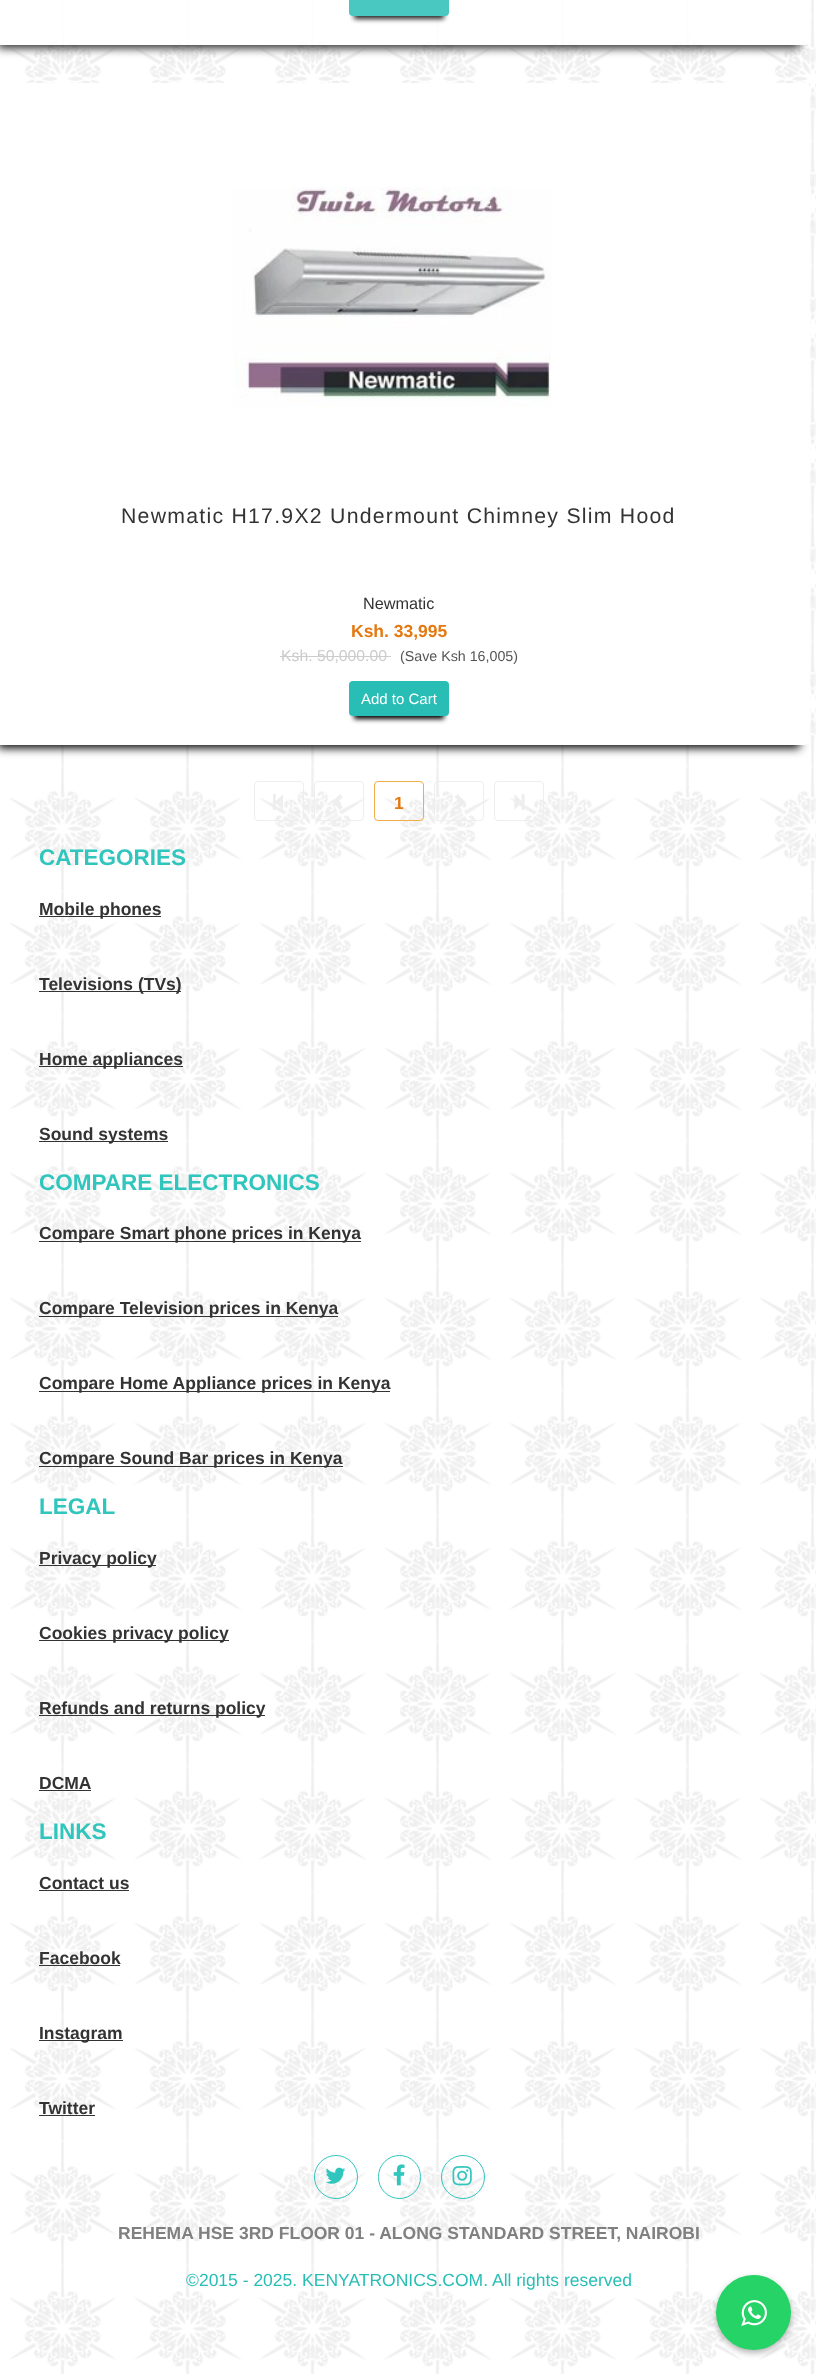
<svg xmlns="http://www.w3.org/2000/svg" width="816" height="2374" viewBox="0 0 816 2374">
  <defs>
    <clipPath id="clip1"><path d="M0 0H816V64H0ZM-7-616H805C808-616 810-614 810-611V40C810 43 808 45 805 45H-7C-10 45-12 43-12 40V-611C-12-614-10-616-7-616Z" clip-rule="evenodd"/></clipPath>
    <clipPath id="clip2"><path d="M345 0H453V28H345ZM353-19H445C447-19 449-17 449-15V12C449 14 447 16 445 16H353C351 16 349 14 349 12V-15C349-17 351-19 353-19Z" clip-rule="evenodd"/></clipPath>
  </defs>
  <rect width="100%" height="100%" fill="rgb(255,255,255)"/>
  <image x="10" y="0" width="806" height="2374" href="pic1.png"/>
  <g clip-path="url(#clip1)">
    <rect x="-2" y="-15" width="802" height="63" fill="rgba(0,0,0,0.85)" filter="blur(5px)"/>
  </g>
  <rect x="-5" y="-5" width="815" height="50" rx="5" fill="rgba(255,255,255,0.85)"/>
  <g clip-path="url(#clip2)">
    <rect x="354" y="-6" width="90" height="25" fill="rgba(0,0,0,0.85)" filter="blur(2.5px)"/>
  </g>
  <rect x="349" y="-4" width="100" height="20" rx="4" fill="rgba(40,190,182,0.85)"/>
  <rect x="-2" y="105" width="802" height="643" fill="rgb(0,0,0)" filter="blur(5px)"/>
  <rect x="-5" y="83" width="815" height="662" rx="5" fill="rgb(255,255,255)"/>
  <image x="233" y="187" width="318" height="220" href="pic2.png"/>
  <text x="121" y="523" font-family="Liberation Sans" font-size="21.25" letter-spacing="1.25" fill="rgb(51,51,51)">Newmatic H17.9X2 Undermount Chimney Slim Hood</text>
  <text x="363" y="609" font-family="Liberation Sans" font-size="16.25" fill="rgb(51,51,51)">Newmatic</text>
  <text x="351" y="637" font-family="Liberation Sans" font-size="17.5" font-weight="bold" fill="rgb(228,121,17)">Ksh. 33,995</text>
  <text x="281" y="661" font-family="Liberation Sans" font-size="15.75" fill="rgb(204,204,204)">Ksh. 50,000.00</text>
  <rect x="280" y="656" width="111" height="1" fill="rgb(204,204,204)"/>
  <text x="400" y="661" font-family="Liberation Sans" font-size="14.25" fill="rgb(85,85,85)">(Save Ksh 16,005)</text>
  <rect x="354" y="694" width="90" height="25" fill="rgb(0,0,0)" filter="blur(2.5px)"/>
  <rect x="349" y="681" width="100" height="35" rx="4" fill="rgb(40,190,182)"/>
  <text x="361" y="704" font-family="Liberation Sans" font-size="15" fill="rgb(255,255,255)">Add to Cart</text>
  <rect x="254.5" y="781.5" width="49" height="39" rx="3.5" fill="none" stroke="rgb(238,238,238)"/>
  <image x="273" y="794" width="10" height="16" href="pic3.png"/>
  <rect x="314.5" y="781.5" width="49" height="39" rx="3.5" fill="none" stroke="rgb(238,238,238)"/>
  <image x="332" y="794" width="11" height="16" href="pic4.png"/>
  <rect x="374.5" y="781.5" width="49" height="39" rx="3.5" fill="none" stroke="rgb(240,173,78)"/>
  <text x="394" y="809" font-family="Liberation Sans" font-size="17.5" font-weight="bold" fill="rgb(228,121,17)">1</text>
  <rect x="434.5" y="781.5" width="49" height="39" rx="3.5" fill="none" stroke="rgb(238,238,238)"/>
  <image x="455" y="794" width="9" height="16" href="pic5.png"/>
  <rect x="494.5" y="781.5" width="49" height="39" rx="3.5" fill="none" stroke="rgb(238,238,238)"/>
  <image x="514" y="794" width="11" height="16" href="pic6.png"/>
  <text x="39" y="865" font-family="Liberation Sans" font-size="22.5" font-weight="bold" fill="rgb(48,197,189)">CATEGORIES</text>
  <rect x="39" y="916" width="122" height="1" fill="rgb(51,51,51)"/>
  <text x="39" y="915" font-family="Liberation Sans" font-size="17.5" font-weight="bold" fill="rgb(51,51,51)">Mobile phones</text>
  <rect x="39" y="991" width="142" height="1" fill="rgb(51,51,51)"/>
  <text x="39" y="990" font-family="Liberation Sans" font-size="17.5" font-weight="bold" fill="rgb(51,51,51)">Televisions (TVs)</text>
  <rect x="39" y="1066" width="144" height="1" fill="rgb(51,51,51)"/>
  <text x="39" y="1065" font-family="Liberation Sans" font-size="17.5" font-weight="bold" fill="rgb(51,51,51)">Home appliances</text>
  <rect x="39" y="1141" width="129" height="1" fill="rgb(51,51,51)"/>
  <text x="39" y="1140" font-family="Liberation Sans" font-size="17.5" font-weight="bold" fill="rgb(51,51,51)">Sound systems</text>
  <text x="39" y="1190" font-family="Liberation Sans" font-size="22.5" font-weight="bold" fill="rgb(48,197,189)">COMPARE ELECTRONICS</text>
  <rect x="39" y="1241" width="322" height="1" fill="rgb(51,51,51)"/>
  <text x="39" y="1239" font-family="Liberation Sans" font-size="17.5" font-weight="bold" fill="rgb(51,51,51)">Compare Smart phone prices in Kenya</text>
  <rect x="39" y="1316" width="299" height="1" fill="rgb(51,51,51)"/>
  <text x="39" y="1314" font-family="Liberation Sans" font-size="17.5" font-weight="bold" fill="rgb(51,51,51)">Compare Television prices in Kenya</text>
  <rect x="39" y="1391" width="351" height="1" fill="rgb(51,51,51)"/>
  <text x="39" y="1389" font-family="Liberation Sans" font-size="17.5" font-weight="bold" fill="rgb(51,51,51)">Compare Home Appliance prices in Kenya</text>
  <rect x="39" y="1466" width="304" height="1" fill="rgb(51,51,51)"/>
  <text x="39" y="1464" font-family="Liberation Sans" font-size="17.5" font-weight="bold" fill="rgb(51,51,51)">Compare Sound Bar prices in Kenya</text>
  <text x="39" y="1514" font-family="Liberation Sans" font-size="22.5" font-weight="bold" fill="rgb(48,197,189)">LEGAL</text>
  <rect x="39" y="1565" width="117" height="1" fill="rgb(51,51,51)"/>
  <text x="39" y="1564" font-family="Liberation Sans" font-size="17.5" font-weight="bold" fill="rgb(51,51,51)">Privacy policy</text>
  <rect x="39" y="1640" width="190" height="1" fill="rgb(51,51,51)"/>
  <text x="39" y="1639" font-family="Liberation Sans" font-size="17.5" font-weight="bold" fill="rgb(51,51,51)">Cookies privacy policy</text>
  <rect x="39" y="1715" width="226" height="1" fill="rgb(51,51,51)"/>
  <g font-family="Liberation Sans" font-size="17.5" font-weight="bold" fill="rgb(51,51,51)">
    <text x="39" y="1714">Refunds and returns policy</text>
    <text x="39" y="1789">DCMA</text>
  </g>
  <rect x="39" y="1790" width="52" height="1" fill="rgb(51,51,51)"/>
  <text x="39" y="1839" font-family="Liberation Sans" font-size="22.5" font-weight="bold" fill="rgb(48,197,189)">LINKS</text>
  <text x="39" y="1889" font-family="Liberation Sans" font-size="17.5" font-weight="bold" fill="rgb(51,51,51)">Contact us</text>
  <rect x="39" y="1890" width="90" height="1" fill="rgb(51,51,51)"/>
  <text x="39" y="1964" font-family="Liberation Sans" font-size="17.5" font-weight="bold" fill="rgb(51,51,51)">Facebook</text>
  <rect x="39" y="1965" width="81" height="1" fill="rgb(51,51,51)"/>
  <rect x="39" y="2040" width="84" height="1" fill="rgb(51,51,51)"/>
  <g font-family="Liberation Sans" font-size="17.5" font-weight="bold" fill="rgb(51,51,51)">
    <text x="39" y="2039">Instagram</text>
    <text x="39" y="2114">Twitter</text>
  </g>
  <rect x="39" y="2115" width="56" height="1" fill="rgb(51,51,51)"/>
  <circle cx="336" cy="2177" r="21.5" fill="none" stroke="rgb(48,197,189)"/>
  <image x="325" y="2167" width="21" height="17" href="pic7.png"/>
  <rect x="378.5" y="2155.5" width="42" height="43" rx="21" fill="none" stroke="rgb(48,197,189)"/>
  <image x="393" y="2164" width="12" height="22" href="pic8.png"/>
  <circle cx="463" cy="2177" r="21.5" fill="none" stroke="rgb(48,197,189)"/>
  <image x="452" y="2166" width="20" height="20" href="pic9.png"/>
  <text x="118" y="2239" font-family="Liberation Sans" font-size="17.5" font-weight="bold" fill="rgb(128,128,128)">REHEMA HSE 3RD FLOOR 01 - ALONG STANDARD STREET, NAIROBI</text>
  <text x="186" y="2286" font-family="Liberation Sans" font-size="17.5" fill="rgb(40,190,182)">©2015 - 2025. KENYATRONICS.COM. All rights reserved</text>
  <rect x="716" y="2278" width="75" height="75" rx="37.5" fill="rgba(0,0,0,0.3)" filter="blur(3px)"/>
  <circle cx="753.5" cy="2312.5" r="37.5" fill="rgb(37,211,102)"/>
  <image x="741" y="2300" width="26" height="26" href="pic10.png"/>
</svg>
